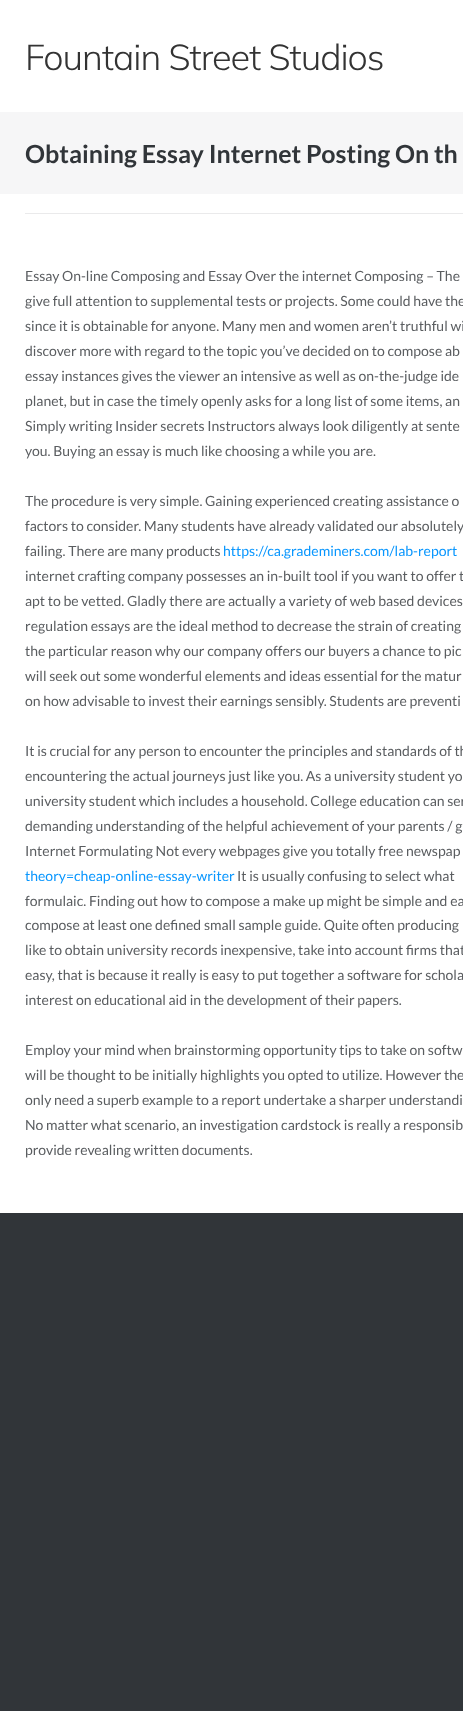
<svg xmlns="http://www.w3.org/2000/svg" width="463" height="1711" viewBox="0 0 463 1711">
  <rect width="100%" height="100%" fill="rgb(49,53,57)"/>
  <rect x="0" y="0" width="463" height="1213" fill="rgb(255,255,255)"/>
  <text x="25" y="70" font-family="Mulish" font-size="36" font-weight="200" letter-spacing="-1" fill="rgb(51,51,51)">Fountain Street Studios</text>
  <rect x="0" y="112" width="463" height="82" fill="rgb(246,246,247)"/>
  <text x="25" y="163" font-family="Lato" font-size="25" font-weight="bold" fill="rgb(49,53,57)">Obtaining Essay Internet Posting On th</text>
  <rect x="25" y="213" width="438" height="1" fill="rgb(234,234,235)"/>
  <g font-family="Lato" font-size="14" fill="rgb(90,93,96)">
    <text>
      <tspan x="25" y="281">Essay On-line Composing and Essay Over the internet Composing – The</tspan>
      <tspan x="25" y="306">give full attention to supplemental tests or projects. Some could have the</tspan>
      <tspan x="25" y="331">since it is obtainable for anyone. Many men and women aren’t truthful wi</tspan>
      <tspan x="25" y="356">discover more with regard to the topic you’ve decided on to compose ab</tspan>
      <tspan x="25" y="381">essay instances gives the viewer an intensive as well as on-the-judge ide</tspan>
      <tspan x="25" y="406">planet, but in case the timely openly asks for a long list of some items, an</tspan>
      <tspan x="25" y="431">Simply writing Insider secrets Instructors always look diligently at sente</tspan>
      <tspan x="25" y="456">you. Buying an essay is much like choosing a while you are.</tspan>
    </text>
    <text>
      <tspan x="25" y="506">The procedure is very simple. Gaining experienced creating assistance o</tspan>
      <tspan x="25" y="531">factors to consider. Many students have already validated our absolutely</tspan>
      <tspan x="25" y="556">failing. There are many products</tspan>
    </text>
  </g>
  <text x="223" y="556" font-family="Lato" font-size="14" fill="rgb(8,150,254)">https://ca.grademiners.com/lab-report</text>
  <g font-family="Lato" font-size="14" fill="rgb(90,93,96)">
    <text>
      <tspan x="25" y="581">internet crafting company possesses an in-built tool if you want to offer t</tspan>
      <tspan x="25" y="606">apt to be vetted. Gladly there are actually a variety of web based devices</tspan>
      <tspan x="25" y="631">regulation essays are the ideal method to decrease the strain of creating</tspan>
      <tspan x="25" y="656">the particular reason why our company offers our buyers a chance to pic</tspan>
      <tspan x="25" y="681">will seek out some wonderful elements and ideas essential for the matur</tspan>
      <tspan x="25" y="706">on how advisable to invest their earnings sensibly. Students are preventi</tspan>
    </text>
    <text>
      <tspan x="25" y="756">It is crucial for any person to encounter the principles and standards of th</tspan>
      <tspan x="25" y="781">encountering the actual journeys just like you. As a university student yo</tspan>
      <tspan x="25" y="806">university student which includes a household. College education can ser</tspan>
      <tspan x="25" y="831">demanding understanding of the helpful achievement of your parents / g</tspan>
      <tspan x="25" y="856">Internet Formulating Not every webpages give you totally free newspap</tspan>
    </text>
  </g>
  <text x="25" y="881" font-family="Lato" font-size="14" fill="rgb(8,150,254)">theory=cheap-online-essay-writer</text>
  <g font-family="Lato" font-size="14" fill="rgb(90,93,96)">
    <text x="237" y="881">It is usually confusing to select what</text>
    <text>
      <tspan x="25" y="906">formulaic. Finding out how to compose a make up might be simple and ea</tspan>
      <tspan x="25" y="930">compose at least one defined small sample guide. Quite often producing</tspan>
      <tspan x="25" y="955">like to obtain university records inexpensive, take into account firms that</tspan>
      <tspan x="25" y="980">easy, that is because it really is easy to put together a software for schola</tspan>
      <tspan x="25" y="1005">interest on educational aid in the development of their papers.</tspan>
    </text>
    <text>
      <tspan x="25" y="1055">Employ your mind when brainstorming opportunity tips to take on softw</tspan>
      <tspan x="25" y="1080">will be thought to be initially highlights you opted to utilize. However the</tspan>
      <tspan x="25" y="1105">only need a superb example to a report undertake a sharper understandi</tspan>
      <tspan x="25" y="1130">No matter what scenario, an investigation cardstock is really a responsib</tspan>
      <tspan x="25" y="1155">provide revealing written documents.</tspan>
    </text>
  </g>
</svg>
